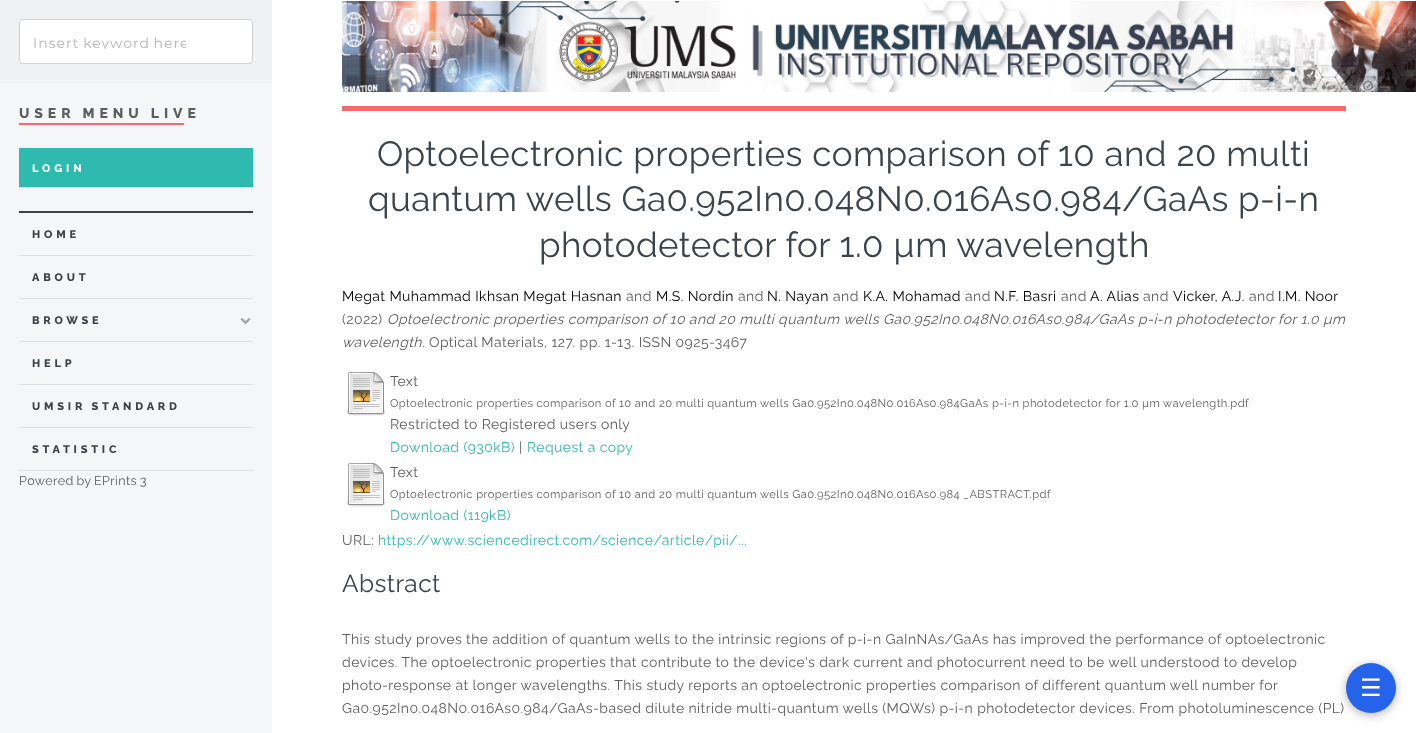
<svg xmlns="http://www.w3.org/2000/svg" width="1416" height="733" viewBox="0 0 1416 733">
  <defs>
    <clipPath id="clip1"><rect x="33" y="34" width="153" height="15"/></clipPath>
  </defs>
  <rect width="100%" height="100%" fill="rgb(255,255,255)"/>
  <rect x="0" y="83" width="272" height="650" fill="rgb(245,246,247)"/>
  <rect x="0" y="0" width="272" height="83" fill="rgb(239,241,242)"/>
  <rect x="19.5" y="19.5" width="233" height="44" rx="3.5" fill="rgb(255,255,255)" stroke="rgb(210,210,210)"/>
  <g clip-path="url(#clip1)">
    <text x="33" y="48" word-spacing="-1" font-family="Montserrat" font-size="14" letter-spacing="1" fill="rgb(181,181,181)">Insert keyword here</text>
  </g>
  <rect x="19" y="123" width="165" height="2" fill="rgb(245,106,106)"/>
  <text x="19" y="118" word-spacing="-1" font-family="Raleway" font-size="14" font-weight="800" letter-spacing="4.9" fill="rgb(93,93,93)">USER MENU LIVE</text>
  <rect x="19" y="148" width="234" height="39" fill="rgb(46,186,174)"/>
  <rect x="19" y="187" width="234" height="1" fill="rgb(219,223,225)"/>
  <text x="32" y="172" font-family="Raleway" font-size="11" font-weight="800" letter-spacing="3.8" fill="rgb(255,255,255)">LOGIN</text>
  <rect x="19" y="211" width="234" height="2" fill="rgb(61,68,73)"/>
  <text x="32" y="238" font-family="Raleway" font-size="11" font-weight="800" letter-spacing="3.8" fill="rgb(61,68,73)">HOME</text>
  <rect x="19" y="255" width="234" height="1" fill="rgb(219,223,225)"/>
  <text x="32" y="281" font-family="Raleway" font-size="11" font-weight="800" letter-spacing="3.8" fill="rgb(61,68,73)">ABOUT</text>
  <rect x="19" y="298" width="234" height="1" fill="rgb(219,223,225)"/>
  <text x="32" y="324" font-family="Raleway" font-size="11" font-weight="800" letter-spacing="3.8" fill="rgb(61,68,73)">BROWSE</text>
  <image x="240" y="318" width="11" height="7" href="pic1.png"/>
  <rect x="19" y="341" width="234" height="1" fill="rgb(219,223,225)"/>
  <text x="32" y="367" font-family="Raleway" font-size="11" font-weight="800" letter-spacing="3.8" fill="rgb(61,68,73)">HELP</text>
  <rect x="19" y="384" width="234" height="1" fill="rgb(219,223,225)"/>
  <text x="32" y="410" word-spacing="-1" font-family="Raleway" font-size="11" font-weight="800" letter-spacing="3.8" fill="rgb(61,68,73)">UMSIR STANDARD</text>
  <rect x="19" y="427" width="234" height="1" fill="rgb(219,223,225)"/>
  <rect x="19" y="470" width="234" height="1" fill="rgb(219,223,225)"/>
  <text x="32" y="453" font-family="Raleway" font-size="11" font-weight="800" letter-spacing="3.8" fill="rgb(61,68,73)">STATISTIC</text>
  <text x="19" y="485" word-spacing="-1" font-family="Raleway" font-size="12.6" letter-spacing="0.42" fill="rgb(93,93,93)">Powered by EPrints 3</text>
  <rect x="342" y="106" width="1004" height="5" fill="rgb(245,106,106)"/>
  <image x="342" y="1" width="1074" height="91" href="pic2.png"/>
  <g font-family="Raleway" font-size="35" letter-spacing="0.42" fill="rgb(61,68,73)">
    <text x="377" y="166">Optoelectronic properties comparison of 10 and 20 multi</text>
    <text x="368" y="211">quantum wells Ga0.952In0.048N0.016As0.984/GaAs p-i-n</text>
    <text x="539" y="257">photodetector for 1.0 µm wavelength</text>
  </g>
  <text x="342" y="301" font-family="Raleway" font-size="14" letter-spacing="0.42" fill="rgb(0,0,0)">Megat Muhammad Ikhsan Megat Hasnan</text>
  <text x="626" y="301" font-family="Raleway" font-size="14" letter-spacing="0.42" fill="rgb(93,93,93)">and</text>
  <text x="656" y="301" font-family="Raleway" font-size="14" letter-spacing="0.42" fill="rgb(0,0,0)">M.S. Nordin</text>
  <text x="738" y="301" font-family="Raleway" font-size="14" letter-spacing="0.42" fill="rgb(93,93,93)">and</text>
  <text x="767" y="301" font-family="Raleway" font-size="14" letter-spacing="0.42" fill="rgb(0,0,0)">N. Nayan</text>
  <text x="833" y="301" font-family="Raleway" font-size="14" letter-spacing="0.42" fill="rgb(93,93,93)">and</text>
  <text x="863" y="301" font-family="Raleway" font-size="14" letter-spacing="0.42" fill="rgb(0,0,0)">K.A. Mohamad</text>
  <text x="965" y="301" font-family="Raleway" font-size="14" letter-spacing="0.42" fill="rgb(93,93,93)">and</text>
  <text x="994" y="301" font-family="Raleway" font-size="14" letter-spacing="0.42" fill="rgb(0,0,0)">N.F. Basri</text>
  <text x="1061" y="301" font-family="Raleway" font-size="14" letter-spacing="0.42" fill="rgb(93,93,93)">and</text>
  <text x="1090" y="301" font-family="Raleway" font-size="14" letter-spacing="0.42" fill="rgb(0,0,0)">A. Alias</text>
  <text x="1143" y="301" font-family="Raleway" font-size="14" letter-spacing="0.42" fill="rgb(93,93,93)">and</text>
  <text x="1173" y="301" font-family="Raleway" font-size="14" letter-spacing="0.42" fill="rgb(0,0,0)">Vicker, A.J.</text>
  <text x="1249" y="301" font-family="Raleway" font-size="14" letter-spacing="0.42" fill="rgb(93,93,93)">and</text>
  <text x="1278" y="301" font-family="Raleway" font-size="14" letter-spacing="0.42" fill="rgb(0,0,0)">I.M. Noor</text>
  <text x="342" y="324" font-family="Raleway" font-size="14" letter-spacing="0.42" fill="rgb(93,93,93)">(2022)</text>
  <g font-family="Raleway" font-size="14" font-style="italic" letter-spacing="0.42" fill="rgb(93,93,93)">
    <text x="387" y="324">Optoelectronic properties comparison of 10 and 20 multi quantum wells Ga0.952In0.048N0.016As0.984/GaAs p-i-n photodetector for 1.0 µm</text>
    <text x="342" y="347">wavelength.</text>
  </g>
  <text x="429" y="347" font-family="Raleway" font-size="14" letter-spacing="0.42" fill="rgb(93,93,93)">Optical Materials, 127. pp. 1-13. ISSN 0925-3467</text>
  <image x="346" y="372" width="40" height="44" href="pic3.png"/>
  <text x="390" y="386" font-family="Raleway" font-size="14" letter-spacing="0.42" fill="rgb(93,93,93)">Text</text>
  <text x="390" y="407" font-family="Raleway" font-size="11.2" letter-spacing="0.42" fill="rgb(93,93,93)">Optoelectronic properties comparison of 10 and 20 multi quantum wells Ga0.952In0.048N0.016As0.984GaAs p-i-n photodetector for 1.0 µm wavelength.pdf</text>
  <text x="390" y="429" font-family="Raleway" font-size="14" letter-spacing="0.42" fill="rgb(93,93,93)">Restricted to Registered users only</text>
  <text x="390" y="452" font-family="Raleway" font-size="14" letter-spacing="0.42" fill="rgb(46,186,174)">Download (930kB)</text>
  <text x="519" y="452" font-family="Raleway" font-size="14" letter-spacing="0.42" fill="rgb(93,93,93)">|</text>
  <text x="527" y="452" font-family="Raleway" font-size="14" letter-spacing="0.42" fill="rgb(46,186,174)">Request a copy</text>
  <image x="346" y="463" width="40" height="44" href="pic3.png"/>
  <text x="390" y="477" font-family="Raleway" font-size="14" letter-spacing="0.42" fill="rgb(93,93,93)">Text</text>
  <text x="390" y="498" font-family="Raleway" font-size="11.2" letter-spacing="0.42" fill="rgb(93,93,93)">Optoelectronic properties comparison of 10 and 20 multi quantum wells Ga0.952In0.048N0.016As0.984 _ABSTRACT.pdf</text>
  <text x="390" y="520" font-family="Raleway" font-size="14" letter-spacing="0.42" fill="rgb(46,186,174)">Download (119kB)</text>
  <text x="342" y="545" font-family="Raleway" font-size="14" letter-spacing="0.42" fill="rgb(93,93,93)">URL:</text>
  <text x="378" y="545" font-family="Raleway" font-size="14" letter-spacing="0.42" fill="rgb(46,186,174)">https://www.sciencedirect.com/science/article/pii/...</text>
  <text x="342" y="592" font-family="Raleway" font-size="24.5" letter-spacing="0.42" fill="rgb(61,68,73)">Abstract</text>
  <g font-family="Raleway" font-size="14" letter-spacing="0.42" fill="rgb(93,93,93)">
    <text>
      <tspan x="342" y="644">This study proves the addition of quantum wells to the intrinsic regions of p-i-n GaInNAs/GaAs has improved the performance of optoelectronic</tspan>
      <tspan x="342" y="667">devices. The optoelectronic properties that contribute to the device's dark current and photocurrent need to be well understood to develop</tspan>
      <tspan x="342" y="690">photo-response at longer wavelengths. This study reports an optoelectronic properties comparison of different quantum well number for</tspan>
      <tspan x="342" y="713">Ga0.952In0.048N0.016As0.984/GaAs-based dilute nitride multi-quantum wells (MQWs) p-i-n photodetector devices. From photoluminescence (PL)</tspan>
    </text>
  </g>
  <rect x="1346" y="665" width="50" height="50" rx="25" fill="rgba(0,0,0,0.3)" filter="blur(5px)"/>
  <circle cx="1371" cy="688" r="25" fill="rgb(37,99,235)"/>
  <text x="1360" y="696" font-family="DejaVu Sans" font-size="24" fill="rgb(255,255,255)">☰</text>
</svg>
